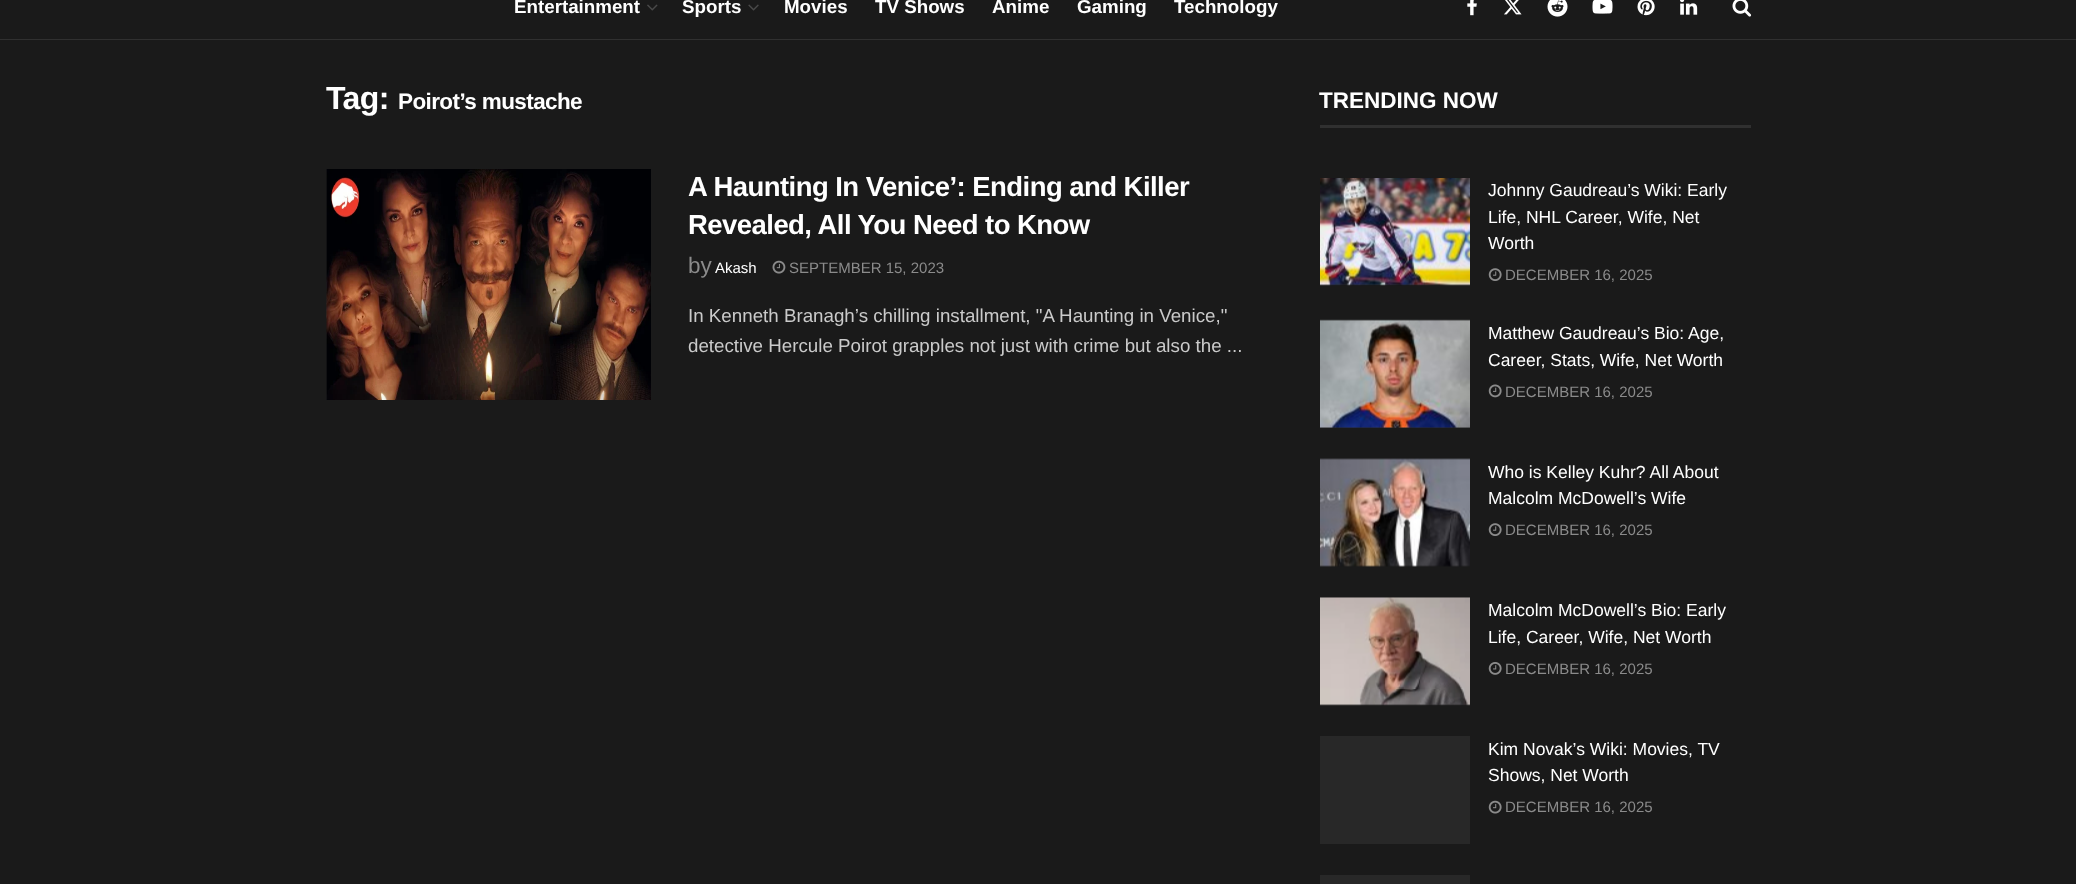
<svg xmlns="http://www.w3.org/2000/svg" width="2076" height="884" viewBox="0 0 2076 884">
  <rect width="100%" height="100%" fill="rgb(26,26,26)"/>
  <rect x="0" y="39" width="2076" height="1" fill="rgb(48,48,48)"/>
  <text x="514" y="13" font-family="Liberation Sans" font-size="18.75" font-weight="bold" fill="rgb(255,255,255)">Entertainment</text>
  <image x="647" y="4" width="11" height="7" href="pic1.png"/>
  <text x="682" y="13" font-family="Liberation Sans" font-size="18.75" font-weight="bold" fill="rgb(255,255,255)">Sports</text>
  <image x="748" y="4" width="11" height="7" href="pic2.png"/>
  <g font-family="Liberation Sans" font-size="18.75" font-weight="bold" fill="rgb(255,255,255)">
    <text x="784" y="13">Movies</text>
    <text x="875" y="13">TV Shows</text>
    <text x="992" y="13">Anime</text>
    <text x="1077" y="13">Gaming</text>
    <text x="1174" y="13">Technology</text>
  </g>
  <image x="1467" y="0" width="10" height="16" href="pic3.png"/>
  <image x="1504" y="0" width="18" height="15" href="pic4.png"/>
  <image x="1547" y="0" width="21" height="17" href="pic5.png"/>
  <image x="1592" y="0" width="21" height="14" href="pic6.png"/>
  <image x="1637" y="0" width="18" height="16" href="pic7.png"/>
  <image x="1680" y="0" width="18" height="15" href="pic8.png"/>
  <image x="1732" y="0" width="20" height="17" href="pic9.png"/>
  <text x="326" y="109" font-family="Liberation Sans" font-size="32" font-weight="bold" letter-spacing="-0.6" fill="rgb(255,255,255)">Tag:</text>
  <text x="398" y="109" font-family="Liberation Sans" font-size="22.5" font-weight="bold" letter-spacing="-0.6" fill="rgb(255,255,255)">Poirot’s mustache</text>
  <rect x="326" y="169" width="1" height="231" fill="rgb(40,40,40)"/>
  <image x="326" y="169" width="325" height="231" href="pic10.png"/>
  <g font-family="Liberation Sans" font-size="27.5" font-weight="bold" letter-spacing="-0.55" fill="rgb(255,255,255)">
    <text>
      <tspan x="688" y="196">A Haunting In Venice’: Ending and Killer</tspan>
      <tspan x="688" y="234">Revealed, All You Need to Know</tspan>
    </text>
  </g>
  <text x="688" y="273" font-family="Liberation Sans" font-size="22.5" fill="rgb(139,139,139)">by</text>
  <text x="715" y="273" font-family="Liberation Sans" font-size="15" fill="rgb(255,255,255)">Akash</text>
  <image x="772" y="260" width="14" height="14" href="pic11.png"/>
  <text x="789" y="273" font-family="Liberation Sans" font-size="15" fill="rgb(139,139,139)">SEPTEMBER 15, 2023</text>
  <g font-family="Liberation Sans" font-size="18.75" fill="rgb(202,202,202)">
    <text>
      <tspan x="688" y="322">In Kenneth Branagh’s chilling installment, "A Haunting in Venice,"</tspan>
      <tspan x="688" y="352">detective Hercule Poirot grapples not just with crime but also the ...</tspan>
    </text>
  </g>
  <rect x="1320" y="125" width="431" height="3" fill="rgb(48,48,48)"/>
  <text x="1319" y="108" font-family="Liberation Sans" font-size="22.5" font-weight="bold" fill="rgb(255,255,255)">TRENDING NOW</text>
  <rect x="1320" y="284" width="150" height="1" fill="rgb(40,40,40)"/>
  <image x="1320" y="178" width="150" height="108" href="pic12.png"/>
  <g font-family="Liberation Sans" font-size="17.5" fill="rgb(255,255,255)">
    <text>
      <tspan x="1488" y="196">Johnny Gaudreau’s Wiki: Early</tspan>
      <tspan x="1488" y="223">Life, NHL Career, Wife, Net</tspan>
      <tspan x="1488" y="249">Worth</tspan>
    </text>
  </g>
  <image x="1488" y="268" width="14" height="13" href="pic13.png"/>
  <text x="1505" y="280" font-family="Liberation Sans" font-size="15" fill="rgb(139,139,139)">DECEMBER 16, 2025</text>
  <rect x="1320" y="320" width="150" height="108" fill="rgb(40,40,40)"/>
  <image x="1320" y="319" width="150" height="109" href="pic14.png"/>
  <g font-family="Liberation Sans" font-size="17.5" fill="rgb(255,255,255)">
    <text>
      <tspan x="1488" y="339">Matthew Gaudreau’s Bio: Age,</tspan>
      <tspan x="1488" y="366">Career, Stats, Wife, Net Worth</tspan>
    </text>
  </g>
  <image x="1488" y="384" width="14" height="14" href="pic15.png"/>
  <text x="1505" y="397" font-family="Liberation Sans" font-size="15" fill="rgb(139,139,139)">DECEMBER 16, 2025</text>
  <image x="1320" y="458" width="150" height="109" href="pic16.png"/>
  <g font-family="Liberation Sans" font-size="17.5" fill="rgb(255,255,255)">
    <text>
      <tspan x="1488" y="478">Who is Kelley Kuhr? All About</tspan>
      <tspan x="1488" y="504">Malcolm McDowell’s Wife</tspan>
    </text>
  </g>
  <image x="1488" y="523" width="14" height="13" href="pic13.png"/>
  <text x="1505" y="535" font-family="Liberation Sans" font-size="15" fill="rgb(139,139,139)">DECEMBER 16, 2025</text>
  <rect x="1320" y="704" width="150" height="1" fill="rgb(40,40,40)"/>
  <rect x="1320" y="597" width="150" height="1" fill="rgb(33,33,33)"/>
  <image x="1320" y="597" width="150" height="109" href="pic17.png"/>
  <g font-family="Liberation Sans" font-size="17.5" fill="rgb(255,255,255)">
    <text>
      <tspan x="1488" y="616">Malcolm McDowell’s Bio: Early</tspan>
      <tspan x="1488" y="643">Life, Career, Wife, Net Worth</tspan>
    </text>
  </g>
  <image x="1488" y="662" width="14" height="13" href="pic18.png"/>
  <text x="1505" y="674" font-family="Liberation Sans" font-size="15" fill="rgb(139,139,139)">DECEMBER 16, 2025</text>
  <rect x="1320" y="736" width="150" height="108" fill="rgb(40,40,40)"/>
  <g font-family="Liberation Sans" font-size="17.5" fill="rgb(255,255,255)">
    <text>
      <tspan x="1488" y="755">Kim Novak’s Wiki: Movies, TV</tspan>
      <tspan x="1488" y="781">Shows, Net Worth</tspan>
    </text>
  </g>
  <image x="1488" y="800" width="14" height="14" href="pic19.png"/>
  <text x="1505" y="812" font-family="Liberation Sans" font-size="15" fill="rgb(139,139,139)">DECEMBER 16, 2025</text>
  <rect x="1320" y="875" width="150" height="9" fill="rgb(40,40,40)"/>
</svg>
